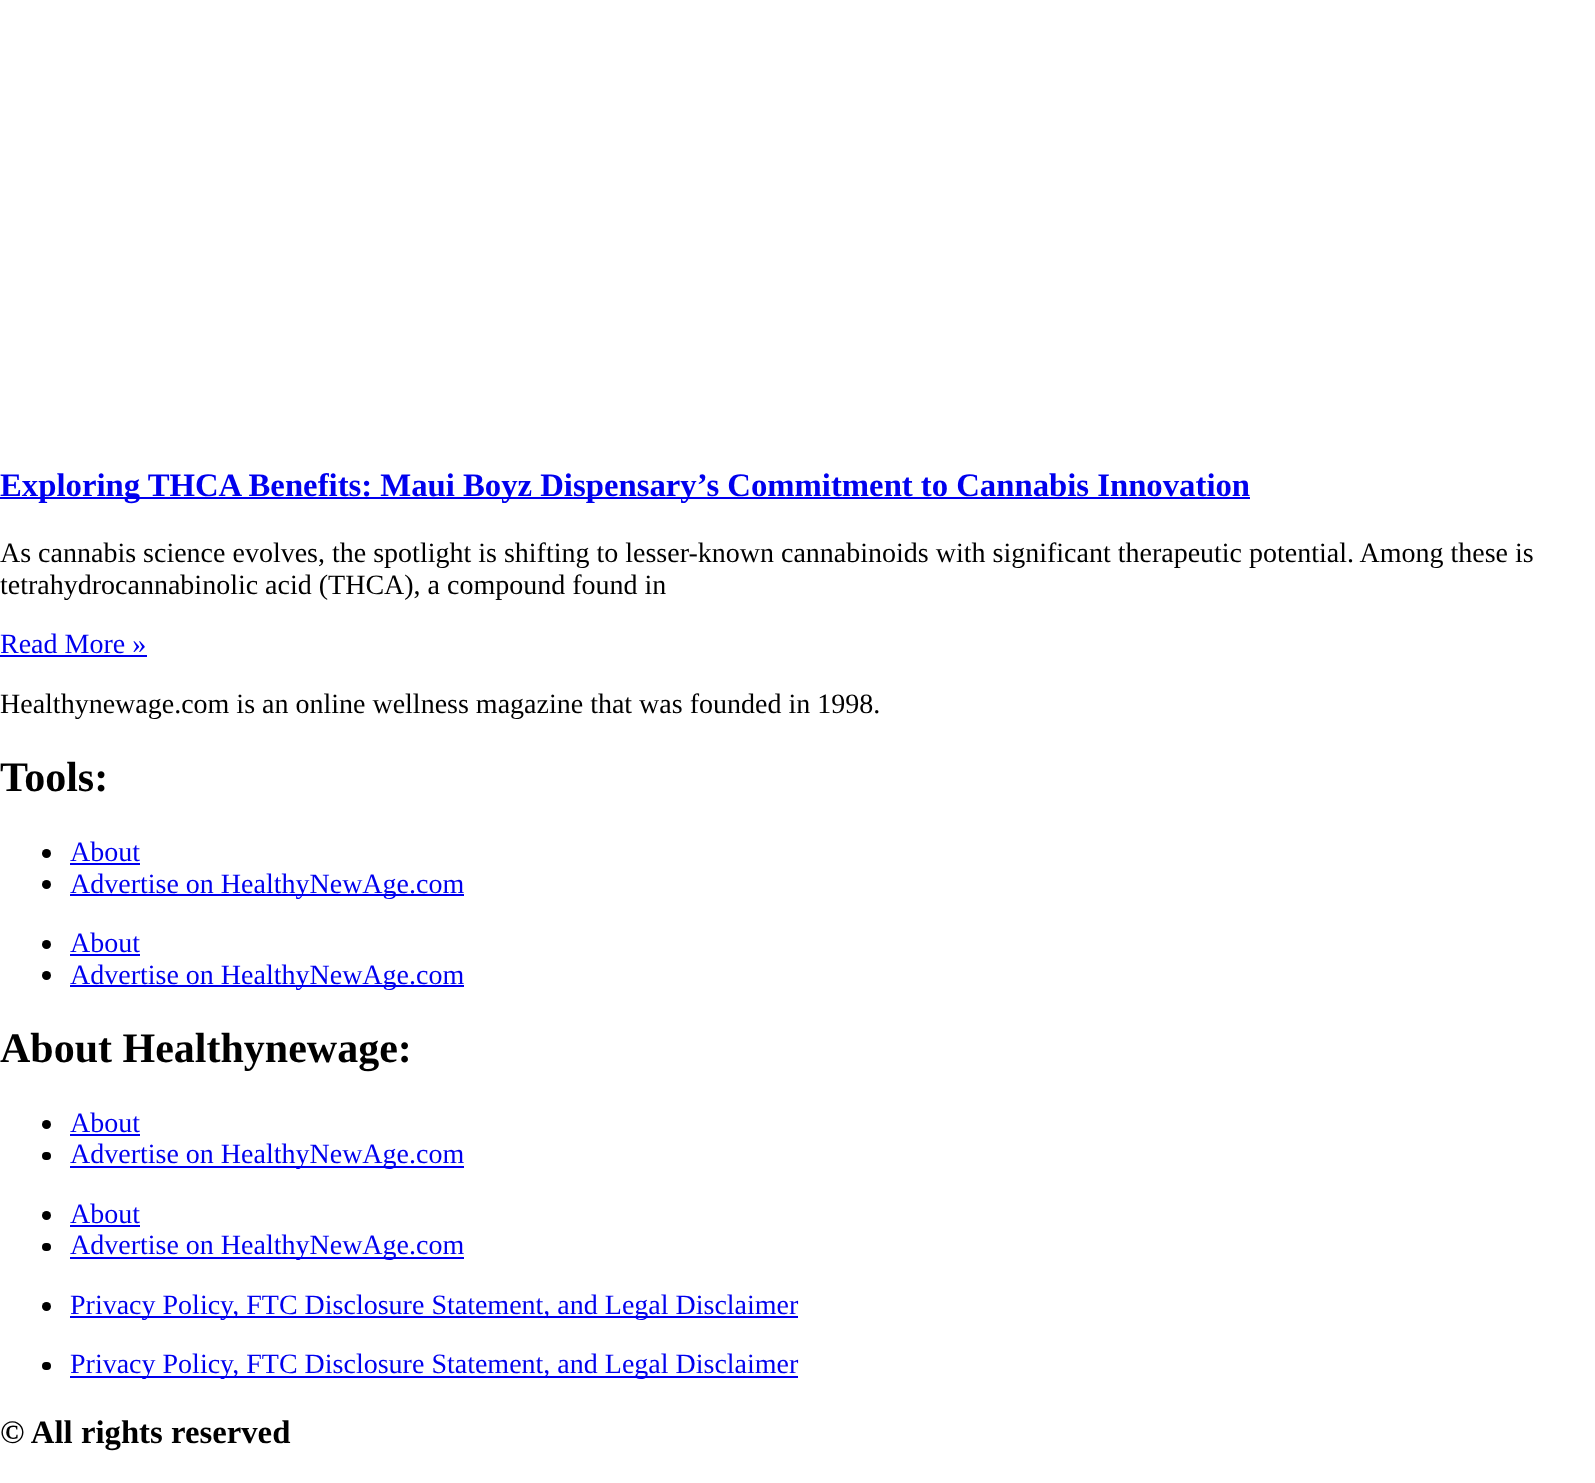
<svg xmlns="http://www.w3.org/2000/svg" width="1595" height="1483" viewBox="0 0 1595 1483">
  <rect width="100%" height="100%" fill="rgb(255,255,255)"/>
  <rect x="0" y="497" width="1250" height="2" fill="rgb(0,0,238)"/>
  <text x="0" y="496" word-spacing="-0.1" font-family="Liberation Serif" font-size="32.75" font-weight="bold" fill="rgb(0,0,238)">Exploring THCA Benefits: Maui Boyz Dispensary’s Commitment to Cannabis Innovation</text>
  <g font-family="Liberation Serif" font-size="28" fill="rgb(0,0,0)">
    <text>
      <tspan x="0" y="562">As cannabis science evolves, the spotlight is shifting to lesser-known cannabinoids with significant therapeutic potential. Among these is</tspan>
      <tspan x="0" y="594">tetrahydrocannabinolic acid (THCA), a compound found in</tspan>
    </text>
  </g>
  <text x="0" y="653" font-family="Liberation Serif" font-size="28" fill="rgb(0,0,238)">Read More »</text>
  <rect x="0" y="655" width="147" height="2" fill="rgb(0,0,238)"/>
  <text x="0" y="713" font-family="Liberation Serif" font-size="28" fill="rgb(0,0,0)">Healthynewage.com is an online wellness magazine that was founded in 1998.</text>
  <text x="0" y="791" font-family="Liberation Serif" font-size="42" font-weight="bold" fill="rgb(0,0,0)">Tools:</text>
  <circle cx="46.5" cy="853.5" r="4.5" fill="rgb(0,0,0)"/>
  <text x="70" y="861" font-family="Liberation Serif" font-size="28" fill="rgb(0,0,238)">About</text>
  <rect x="70" y="863" width="70" height="2" fill="rgb(0,0,238)"/>
  <circle cx="46.5" cy="884.5" r="4.5" fill="rgb(0,0,0)"/>
  <rect x="70" y="894" width="394" height="2" fill="rgb(0,0,238)"/>
  <text x="70" y="893" font-family="Liberation Serif" font-size="28" fill="rgb(0,0,238)">Advertise on HealthyNewAge.com</text>
  <circle cx="46.5" cy="944.5" r="4.5" fill="rgb(0,0,0)"/>
  <text x="70" y="952" font-family="Liberation Serif" font-size="28" fill="rgb(0,0,238)">About</text>
  <rect x="70" y="954" width="70" height="2" fill="rgb(0,0,238)"/>
  <circle cx="46.5" cy="975.5" r="4.5" fill="rgb(0,0,0)"/>
  <rect x="70" y="985" width="394" height="2" fill="rgb(0,0,238)"/>
  <text x="70" y="984" font-family="Liberation Serif" font-size="28" fill="rgb(0,0,238)">Advertise on HealthyNewAge.com</text>
  <text x="0" y="1062" font-family="Liberation Serif" font-size="42" font-weight="bold" fill="rgb(0,0,0)">About Healthynewage:</text>
  <circle cx="46.5" cy="1124.5" r="4.5" fill="rgb(0,0,0)"/>
  <text x="70" y="1132" font-family="Liberation Serif" font-size="28" fill="rgb(0,0,238)">About</text>
  <rect x="70" y="1134" width="70" height="2" fill="rgb(0,0,238)"/>
  <rect x="42" y="1152" width="9" height="8" rx="4" fill="rgb(0,0,0)"/>
  <rect x="70" y="1166" width="394" height="2" fill="rgb(0,0,238)"/>
  <text x="70" y="1163" font-family="Liberation Serif" font-size="28" fill="rgb(0,0,238)">Advertise on HealthyNewAge.com</text>
  <circle cx="46.5" cy="1215.5" r="4.5" fill="rgb(0,0,0)"/>
  <text x="70" y="1223" font-family="Liberation Serif" font-size="28" fill="rgb(0,0,238)">About</text>
  <rect x="70" y="1225" width="70" height="2" fill="rgb(0,0,238)"/>
  <rect x="42" y="1243" width="9" height="8" rx="4" fill="rgb(0,0,0)"/>
  <rect x="70" y="1257" width="394" height="2" fill="rgb(0,0,238)"/>
  <text x="70" y="1254" font-family="Liberation Serif" font-size="28" fill="rgb(0,0,238)">Advertise on HealthyNewAge.com</text>
  <circle cx="46.5" cy="1306.5" r="4.5" fill="rgb(0,0,0)"/>
  <rect x="70" y="1316" width="728" height="2" fill="rgb(0,0,238)"/>
  <text x="70" y="1314" font-family="Liberation Serif" font-size="28" fill="rgb(0,0,238)">Privacy Policy, FTC Disclosure Statement, and Legal Disclaimer</text>
  <rect x="42" y="1362" width="9" height="8" rx="4" fill="rgb(0,0,0)"/>
  <rect x="70" y="1376" width="728" height="2" fill="rgb(0,0,238)"/>
  <text x="70" y="1373" font-family="Liberation Serif" font-size="28" fill="rgb(0,0,238)">Privacy Policy, FTC Disclosure Statement, and Legal Disclaimer</text>
  <text x="0" y="1443" font-family="Liberation Serif" font-size="32.75" font-weight="bold" fill="rgb(0,0,0)">© All rights reserved</text>
</svg>
